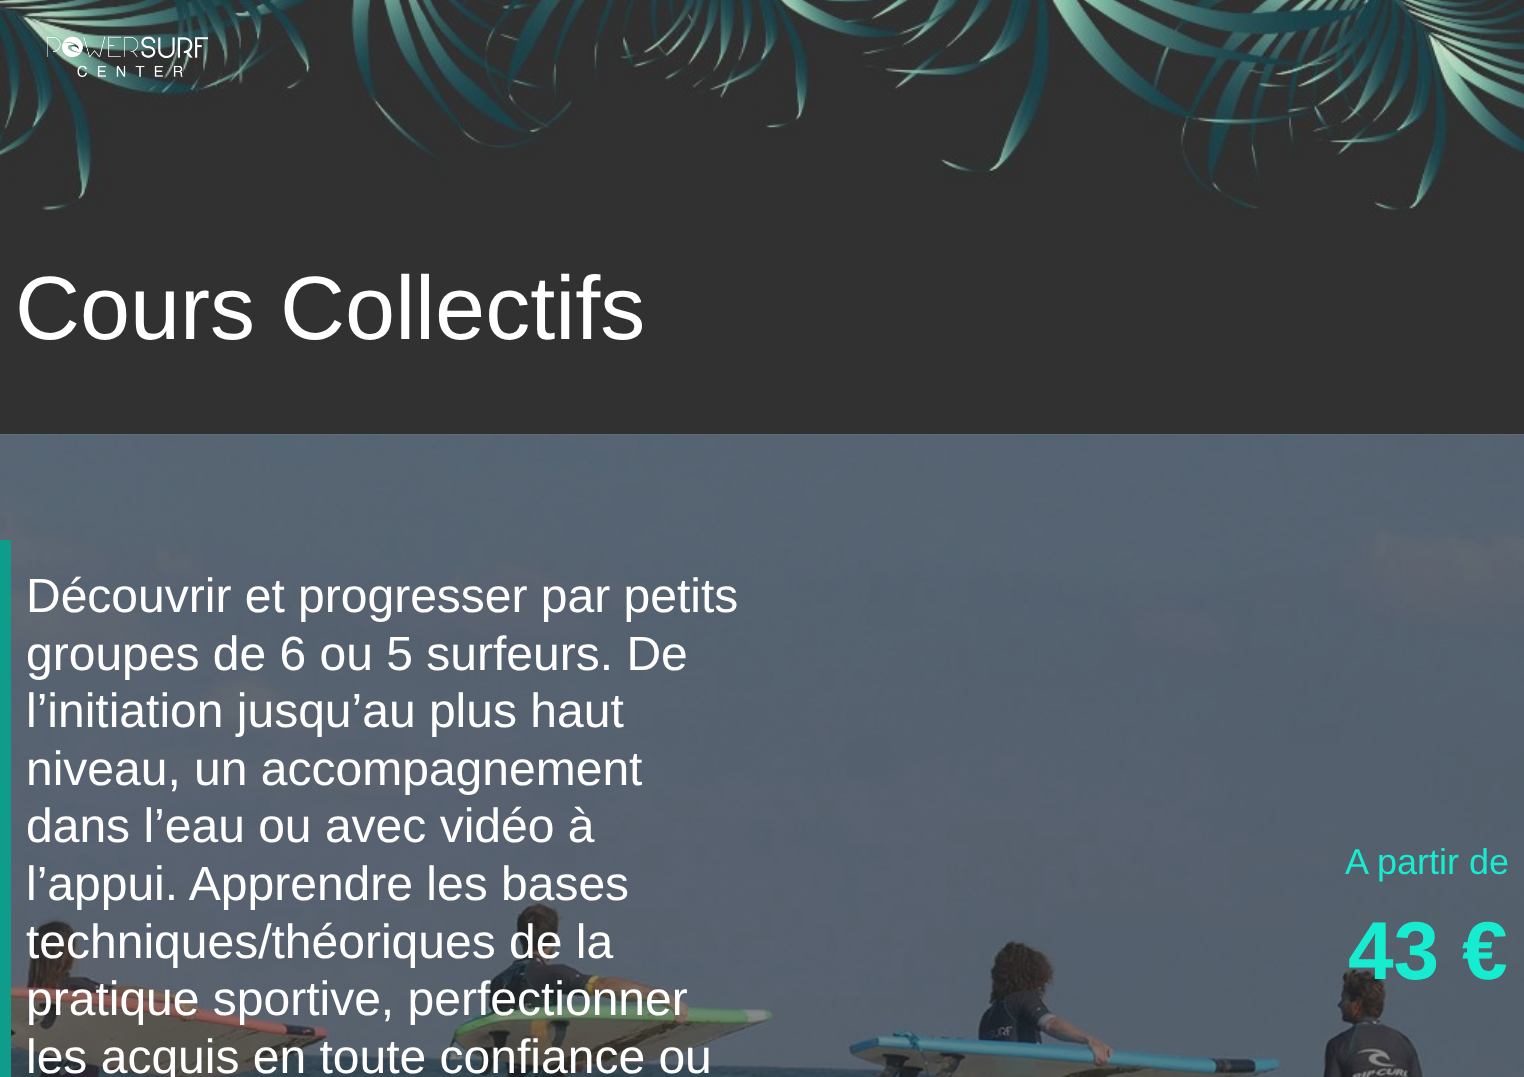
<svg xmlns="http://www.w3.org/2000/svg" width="1524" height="1077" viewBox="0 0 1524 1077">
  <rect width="100%" height="100%" fill="rgb(49,49,49)"/>
  <image x="0" y="0" width="1524" height="215" href="pic2.png"/>
  <image x="47" y="36" width="162" height="41" href="pic1.png"/>
  <text x="15" y="339" font-family="Liberation Sans" font-size="90" fill="rgb(255,255,255)">Cours Collectifs</text>
  <image x="0" y="434" width="1524" height="643" href="pic3.png"/>
  <rect x="0" y="540" width="11" height="537" fill="rgb(15,157,139)"/>
  <g font-family="Liberation Sans" font-size="48" fill="rgb(255,255,255)">
    <text>
      <tspan x="26" y="612">Découvrir et progresser par petits</tspan>
      <tspan x="26" y="670">groupes de 6 ou 5 surfeurs. De</tspan>
      <tspan x="26" y="727">l’initiation jusqu’au plus haut</tspan>
      <tspan x="26" y="785">niveau, un accompagnement</tspan>
      <tspan x="26" y="842">dans l’eau ou avec vidéo à</tspan>
      <tspan x="26" y="900">l’appui. Apprendre les bases</tspan>
      <tspan x="26" y="958">techniques/théoriques de la</tspan>
      <tspan x="26" y="1015">pratique sportive, perfectionner</tspan>
      <tspan x="26" y="1073">les acquis en toute confiance ou</tspan>
    </text>
  </g>
  <text x="1345" y="874" font-family="Liberation Sans" font-size="36" fill="rgb(22,236,208)">A partir de</text>
  <text x="1348" y="979" font-family="Liberation Sans" font-size="82" font-weight="bold" fill="rgb(22,236,208)">43 €</text>
</svg>
